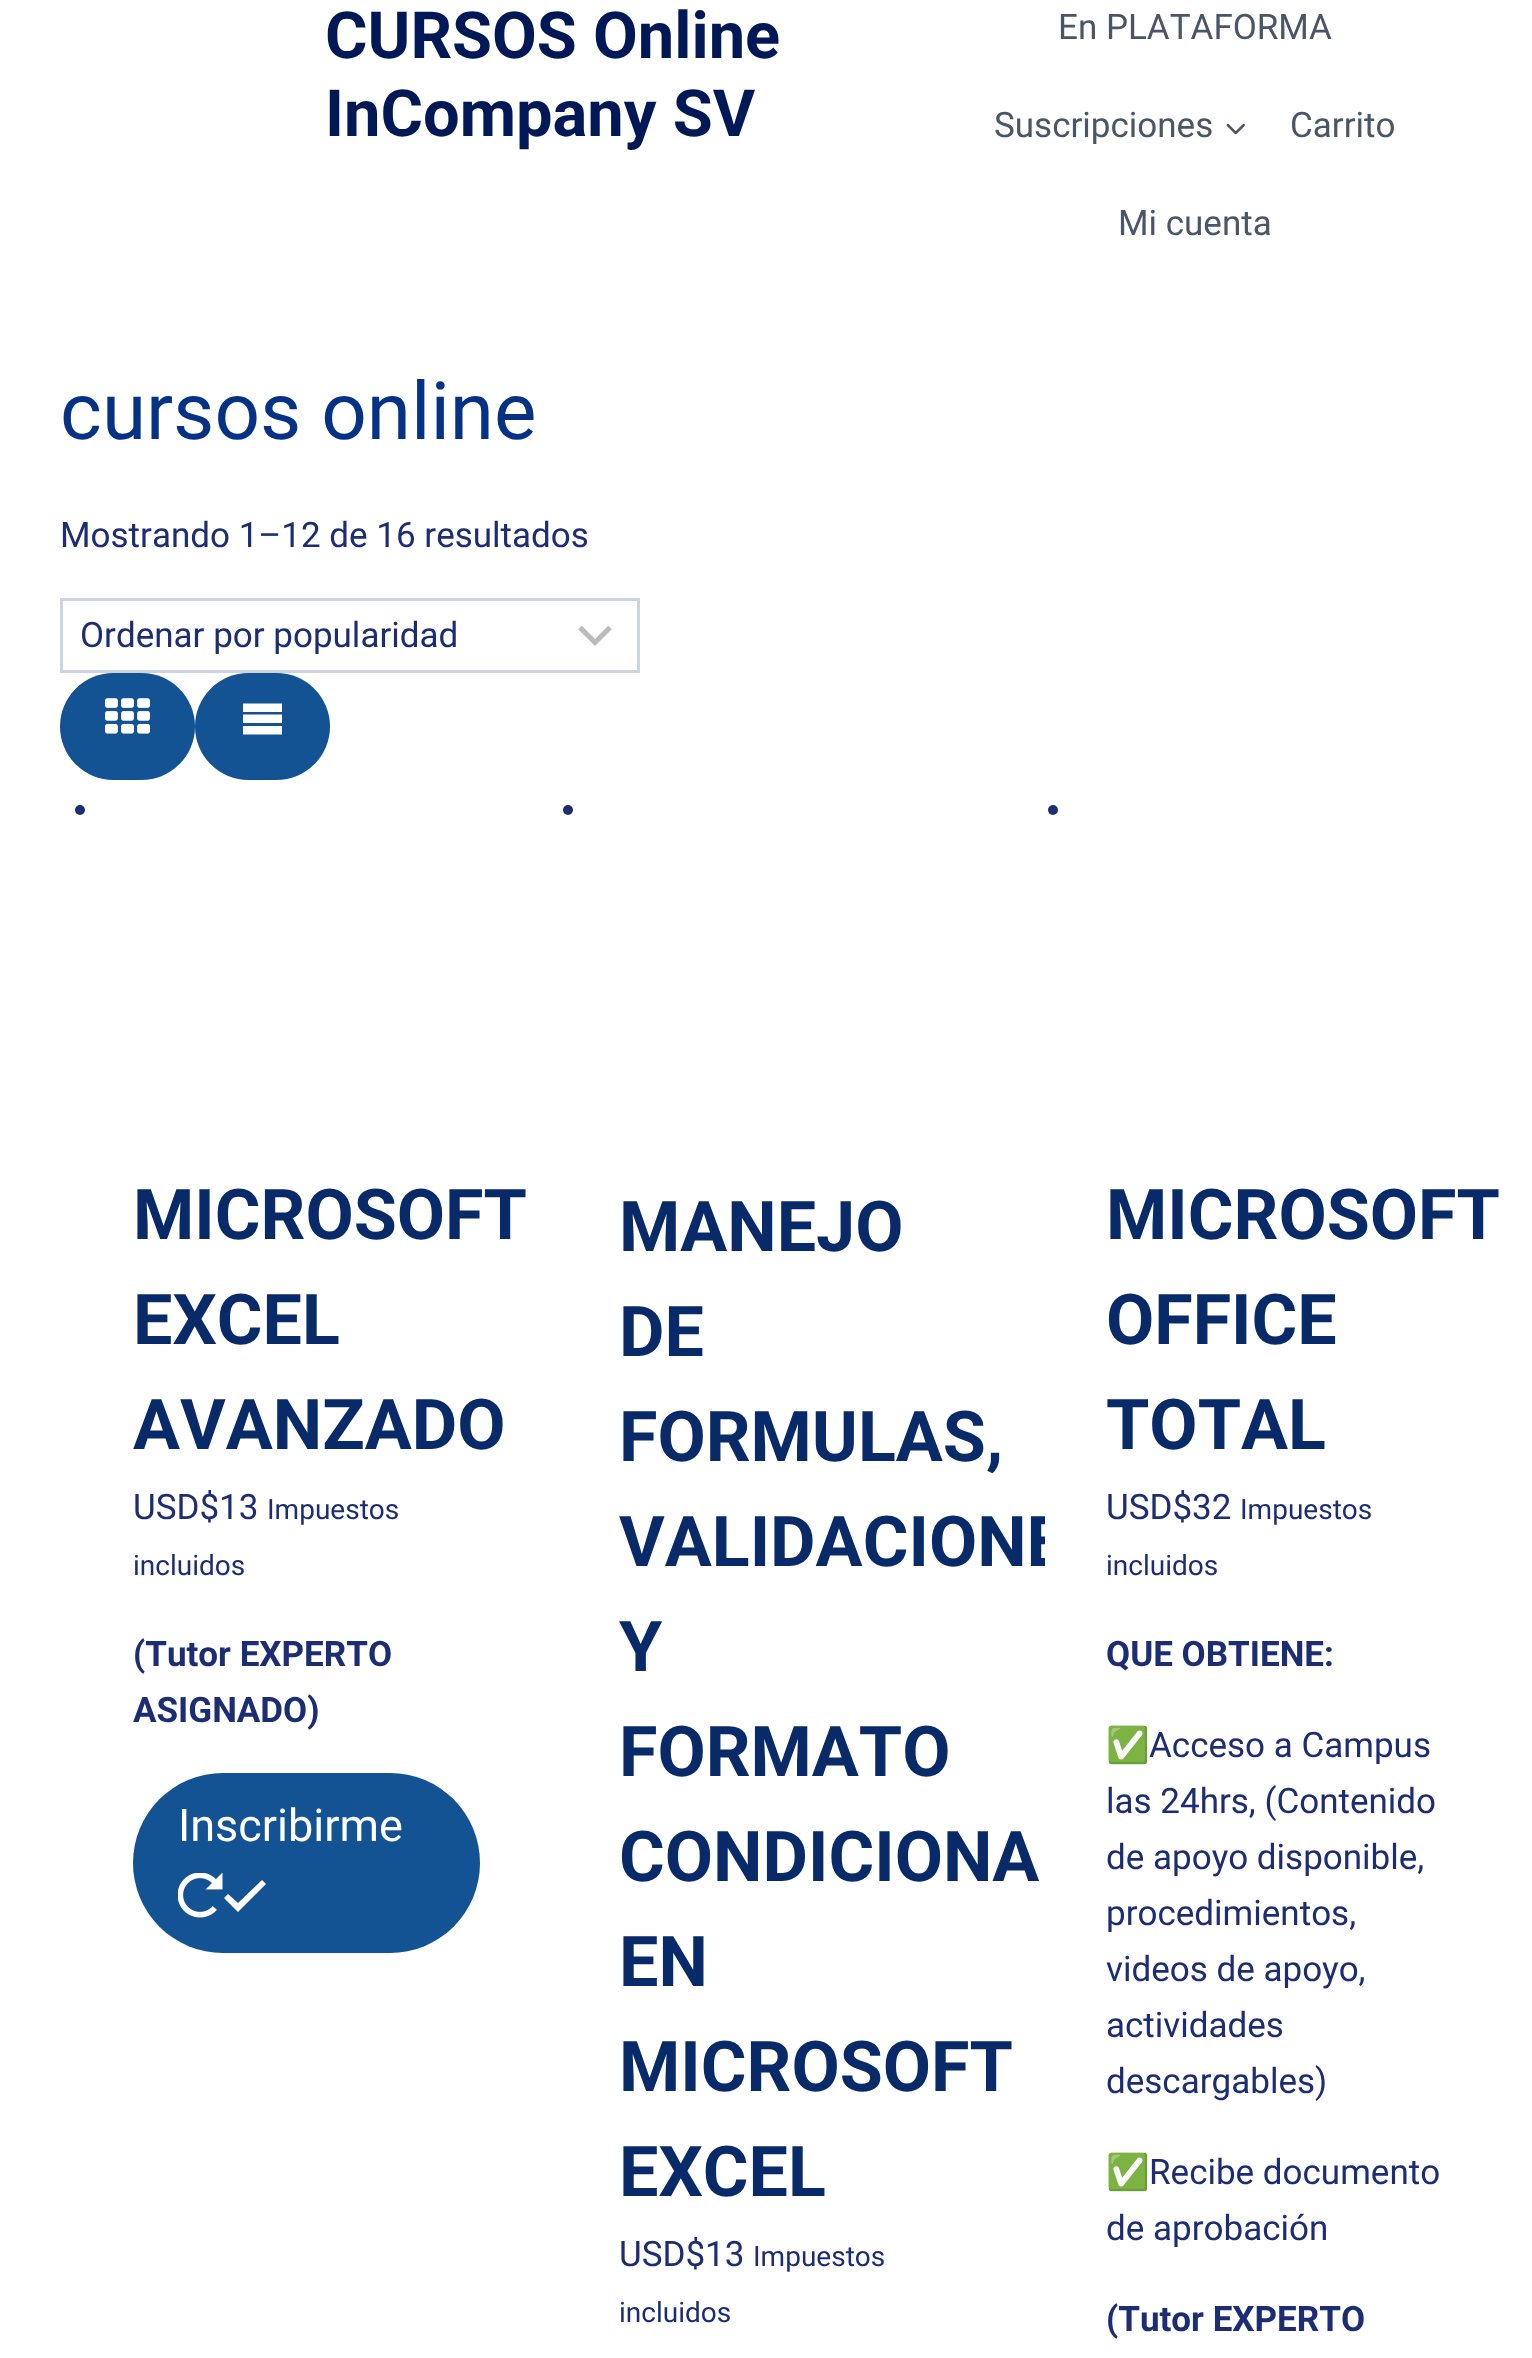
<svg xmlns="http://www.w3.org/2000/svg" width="1532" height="2358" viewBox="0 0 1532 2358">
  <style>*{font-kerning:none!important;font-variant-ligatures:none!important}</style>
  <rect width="100%" height="100%" fill="rgb(255,255,255)"/>
  <g font-family="Roboto" font-size="65" font-weight="bold" fill="rgb(0,24,86)">
    <text>
      <tspan x="325" y="58">CURSOS Online</tspan>
      <tspan x="325" y="136">InCompany SV</tspan>
    </text>
  </g>
  <g font-family="Roboto" font-size="35" fill="rgb(74,85,104)">
    <text x="1058" y="39">En PLATAFORMA</text>
    <text x="994" y="137">Suscripciones</text>
  </g>
  <image x="1226" y="123" width="19" height="12" href="pic1.png"/>
  <g font-family="Roboto" font-size="35" fill="rgb(74,85,104)">
    <text x="1290" y="137">Carrito</text>
    <text x="1118" y="235">Mi cuenta</text>
  </g>
  <text x="60" y="439" font-family="Roboto" font-size="80" fill="rgb(5,50,133)">cursos online</text>
  <text x="60" y="547" font-family="Roboto" font-size="35" fill="rgb(28,45,116)">Mostrando 1–12 de 16 resultados</text>
  <path d="M580 627.5L595 642.5L610 627.5" fill="none" stroke="rgb(187,187,187)" stroke-width="5"/>
  <rect x="61.5" y="599.5" width="577" height="72" fill="none" stroke="rgb(203,213,224)" stroke-width="3"/>
  <text x="80" y="647" font-family="Roboto" font-size="35" fill="rgb(28,45,116)">Ordenar por popularidad</text>
  <rect x="60" y="673" width="135" height="107" rx="53.5" fill="rgb(19,82,147)"/>
  <image x="105" y="698" width="45" height="36" href="pic2.png"/>
  <rect x="195" y="673" width="135" height="107" rx="53.5" fill="rgb(19,82,147)"/>
  <path d="M243 703.5H282V712H243ZM243 714.5H282V723H243ZM243 726H282V734.5H243Z" fill="rgb(255,255,255)"/>
  <circle cx="80" cy="810" r="5" fill="rgb(28,45,116)"/>
  <g font-family="Roboto" font-size="70" font-weight="bold" fill="rgb(9,42,105)">
    <text>
      <tspan x="133" y="1239">MICROSOFT</tspan>
      <tspan x="133" y="1344">EXCEL</tspan>
      <tspan x="133" y="1449">AVANZADO</tspan>
    </text>
  </g>
  <text x="133" y="1519" font-family="Roboto" font-size="35" fill="rgb(28,45,116)">USD$13</text>
  <g font-family="Roboto" font-size="28" fill="rgb(28,45,116)">
    <text x="267" y="1519">Impuestos</text>
    <text x="133" y="1575">incluidos</text>
  </g>
  <g font-family="Roboto" font-size="35" font-weight="bold" fill="rgb(28,45,116)">
    <text>
      <tspan x="133" y="1666">(Tutor EXPERTO</tspan>
      <tspan x="133" y="1722">ASIGNADO)</tspan>
    </text>
  </g>
  <rect x="133" y="1773" width="347" height="180" rx="90" fill="rgb(19,82,147)"/>
  <text x="178" y="1841" font-family="Roboto" font-size="45" fill="rgb(255,255,255)">Inscribirme</text>
  <image x="178" y="1873" width="45" height="45" href="pic3.png"/>
  <path d="M262 1880L238 1903L228 1894L224 1898L238 1912L266 1884Z" fill="rgb(255,255,255)"/>
  <circle cx="568" cy="810" r="5" fill="rgb(28,45,116)"/>
  <g font-family="Roboto" font-size="70" font-weight="bold" fill="rgb(9,42,105)">
    <text>
      <tspan x="619" y="1251">MANEJO</tspan>
      <tspan x="619" y="1356">DE</tspan>
      <tspan x="619" y="1461">FORMULAS,</tspan>
      <tspan x="619" y="1566">VALIDACIONE</tspan>
      <tspan x="619" y="1671">Y</tspan>
      <tspan x="619" y="1776">FORMATO</tspan>
      <tspan x="619" y="1881">CONDICIONA</tspan>
      <tspan x="619" y="1986">EN</tspan>
      <tspan x="619" y="2091">MICROSOFT</tspan>
      <tspan x="619" y="2196">EXCEL</tspan>
    </text>
  </g>
  <text x="619" y="2266" font-family="Roboto" font-size="35" fill="rgb(28,45,116)">USD$13</text>
  <g font-family="Roboto" font-size="28" fill="rgb(28,45,116)">
    <text x="753" y="2266">Impuestos</text>
    <text x="619" y="2322">incluidos</text>
  </g>
  <circle cx="1053" cy="810" r="5" fill="rgb(28,45,116)"/>
  <rect x="1045" y="1516" width="20" height="50" fill="rgb(255,255,255)"/>
  <g font-family="Roboto" font-size="70" font-weight="bold" fill="rgb(9,42,105)">
    <text>
      <tspan x="1106" y="1239">MICROSOFT</tspan>
      <tspan x="1106" y="1344">OFFICE</tspan>
      <tspan x="1106" y="1449">TOTAL</tspan>
    </text>
  </g>
  <text x="1106" y="1519" font-family="Roboto" font-size="35" fill="rgb(28,45,116)">USD$32</text>
  <g font-family="Roboto" font-size="28" fill="rgb(28,45,116)">
    <text x="1240" y="1519">Impuestos</text>
    <text x="1106" y="1575">incluidos</text>
  </g>
  <text x="1106" y="1666" font-family="Roboto" font-size="35" font-weight="bold" fill="rgb(28,45,116)">QUE OBTIENE:</text>
  <text x="1106" y="1757" font-family="Noto Color Emoji" font-size="35" fill="rgb(28,45,116)">✅</text>
  <g font-family="Roboto" font-size="35" fill="rgb(28,45,116)">
    <text x="1149" y="1757">Acceso a Campus</text>
    <text>
      <tspan x="1106" y="1813">las 24hrs, (Contenido</tspan>
      <tspan x="1106" y="1869">de apoyo disponible,</tspan>
      <tspan x="1106" y="1925">procedimientos,</tspan>
      <tspan x="1106" y="1981">videos de apoyo,</tspan>
      <tspan x="1106" y="2037">actividades</tspan>
      <tspan x="1106" y="2093">descargables)</tspan>
    </text>
  </g>
  <text x="1106" y="2184" font-family="Noto Color Emoji" font-size="35" fill="rgb(28,45,116)">✅</text>
  <g font-family="Roboto" font-size="35" fill="rgb(28,45,116)">
    <text x="1149" y="2184">Recibe documento</text>
    <text x="1106" y="2240">de aprobación</text>
  </g>
  <text x="1106" y="2331" font-family="Roboto" font-size="35" font-weight="bold" fill="rgb(28,45,116)">(Tutor EXPERTO</text>
</svg>
